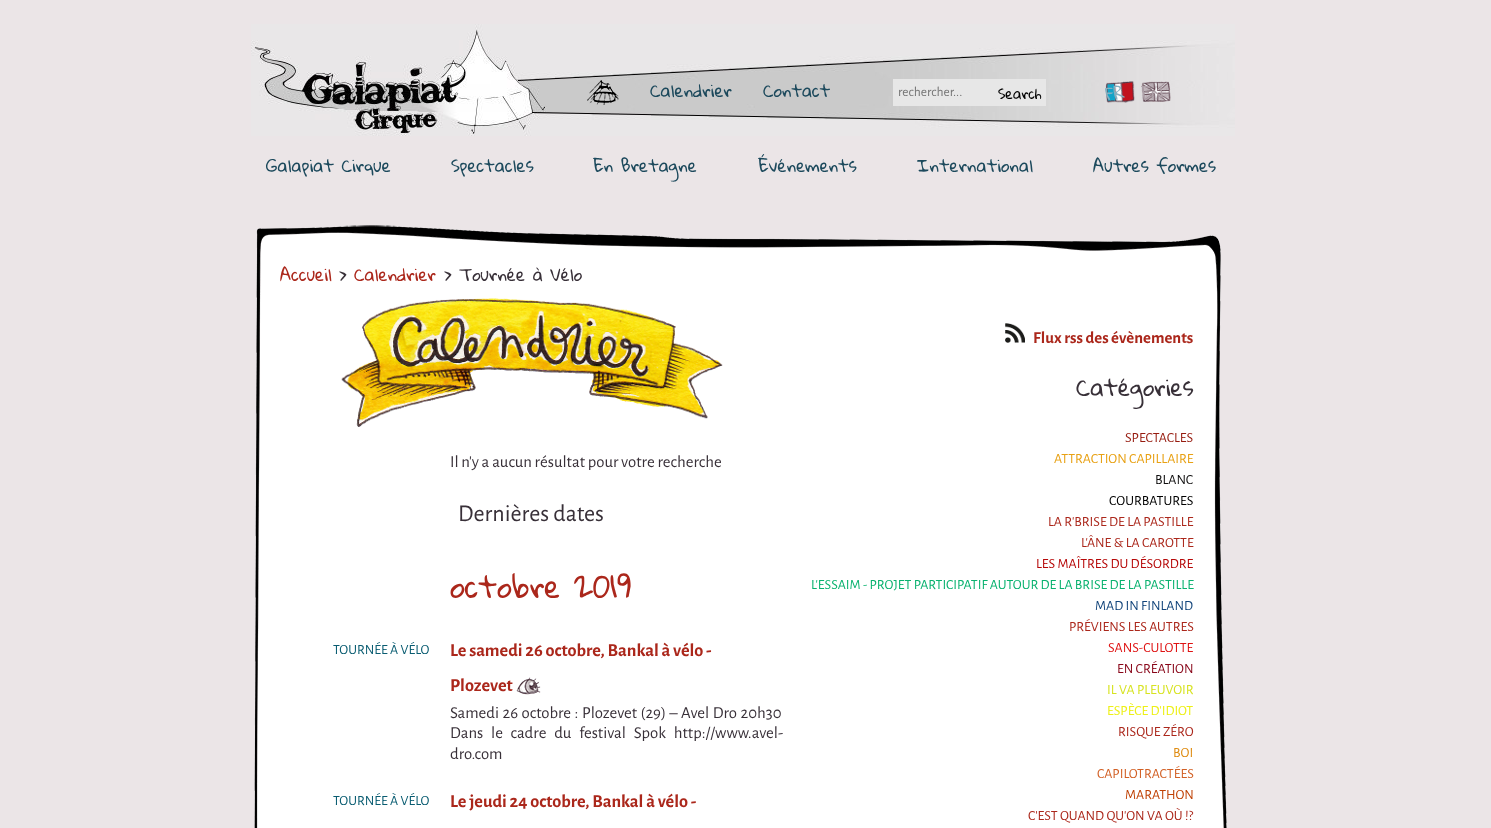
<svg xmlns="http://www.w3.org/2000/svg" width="1491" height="828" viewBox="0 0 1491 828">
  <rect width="100%" height="100%" fill="rgb(235,229,231)"/>
  <image x="251" y="24" width="984" height="112" href="pic1.png"/>
  <image x="587" y="80" width="32" height="25" href="pic2.png"/>
  <g font-family="Gloria Hallelujah" font-size="16.75" fill="rgb(28,73,92)">
    <text x="650" y="97">Calendrier</text>
    <text x="763" y="97">Contact</text>
  </g>
  <rect x="893" y="79" width="153" height="27" fill="rgb(231,231,231)"/>
  <text x="898" y="96" font-family="Alegreya Sans" font-size="13.5" fill="rgb(117,117,117)">rechercher...</text>
  <text x="998" y="99" font-family="Gloria Hallelujah" font-size="14" fill="rgb(0,0,0)">Search</text>
  <image x="1105" y="81" width="30" height="22" href="pic3.png"/>
  <text x="1105" y="100" font-family="Gloria Hallelujah" font-size="16.75" fill="rgb(133,176,192)">FR</text>
  <image x="1141" y="81" width="30" height="21" href="pic4.png"/>
  <text x="1141" y="100" font-family="Gloria Hallelujah" font-size="16.75" fill="rgb(174,161,168)">EN</text>
  <g font-family="Gloria Hallelujah" font-size="16.75" fill="rgb(28,73,92)">
    <text x="266" y="172">Galapiat Cirque</text>
    <text x="451" y="172">Spectacles</text>
    <text x="593" y="172">En Bretagne</text>
    <text x="758" y="172">Événements</text>
    <text x="917" y="172">International</text>
    <text x="1093" y="172">Autres formes</text>
  </g>
  <image x="253" y="225" width="985" height="603" href="pic5.png"/>
  <text x="280" y="281" font-family="Gloria Hallelujah" font-size="16.75" fill="rgb(171,39,27)">Accueil</text>
  <text x="339" y="281" font-family="Gloria Hallelujah" font-size="16.75" fill="rgb(56,48,56)">&gt;</text>
  <text x="354" y="281" font-family="Gloria Hallelujah" font-size="16.75" fill="rgb(171,39,27)">Calendrier</text>
  <text x="444" y="281" font-family="Gloria Hallelujah" font-size="16.75" fill="rgb(56,48,56)">&gt; Tournée à Vélo</text>
  <image x="1005" y="323" width="20" height="20" href="pic6.png"/>
  <text x="1033" y="343" font-family="Alegreya Sans" font-size="16.75" font-weight="bold" fill="rgb(171,39,27)">Flux rss des évènements</text>
  <text x="1076" y="396" font-family="Gloria Hallelujah" font-size="22.5" fill="rgb(56,48,56)">Catégories</text>
  <image x="341" y="298" width="382" height="129" href="pic7.png"/>
  <text x="450" y="467" font-family="Alegreya Sans" font-size="16.75" fill="rgb(56,48,56)">Il n'y a aucun résultat pour votre recherche</text>
  <text x="458" y="521" font-family="Alegreya Sans" font-size="24" fill="rgb(56,48,56)">Dernières dates</text>
  <text x="450" y="598" font-family="Gloria Hallelujah" font-size="29.5" fill="rgb(171,39,27)">octobre 2019</text>
  <text x="333" y="654" font-family="Alegreya Sans" font-size="14" fill="rgb(9,92,113)">TOURNÉE À VÉLO</text>
  <g font-family="Alegreya Sans" font-size="18.25" font-weight="bold" fill="rgb(171,39,27)">
    <text>
      <tspan x="450" y="656">Le samedi 26 octobre, Bankal à vélo -</tspan>
      <tspan x="450" y="691">Plozevet</tspan>
    </text>
  </g>
  <image x="516" y="677" width="25" height="18" href="pic8.png"/>
  <g font-family="Alegreya Sans" font-size="16.75" fill="rgb(56,48,56)">
    <text>
      <tspan x="450" y="718" word-spacing="0.75">Samedi 26 octobre : Plozevet (29) – Avel Dro 20h30</tspan>
      <tspan x="450" y="738" word-spacing="5">Dans le cadre du festival Spok http://www.avel-</tspan>
      <tspan x="450" y="759">dro.com</tspan>
    </text>
  </g>
  <text x="333" y="805" font-family="Alegreya Sans" font-size="14" fill="rgb(9,92,113)">TOURNÉE À VÉLO</text>
  <text x="450" y="807" font-family="Alegreya Sans" font-size="18.25" font-weight="bold" fill="rgb(171,39,27)">Le jeudi 24 octobre, Bankal à vélo -</text>
  <text x="1125" y="442" font-family="Alegreya Sans" font-size="14" fill="rgb(150,27,15)">SPECTACLES</text>
  <text x="1054" y="463" font-family="Alegreya Sans" font-size="14" fill="rgb(232,161,20)">ATTRACTION CAPILLAIRE</text>
  <text x="1155" y="484" font-family="Alegreya Sans" font-size="14" fill="rgb(17,16,16)">BLANC</text>
  <text x="1109" y="505" font-family="Alegreya Sans" font-size="14" fill="rgb(0,0,0)">COURBATURES</text>
  <g font-family="Alegreya Sans" font-size="14" fill="rgb(171,39,27)">
    <text x="1048" y="526">LA R'BRISE DE LA PASTILLE</text>
    <text x="1081" y="547">L'ÂNE &amp; LA CAROTTE</text>
  </g>
  <text x="1036" y="568" font-family="Alegreya Sans" font-size="14" fill="rgb(182,8,8)">LES MAÎTRES DU DÉSORDRE</text>
  <text x="811" y="589" font-family="Alegreya Sans" font-size="14" fill="rgb(9,178,111)">L'ESSAIM - PROJET PARTICIPATIF AUTOUR DE LA BRISE DE LA PASTILLE</text>
  <text x="1095" y="610" font-family="Alegreya Sans" font-size="14" fill="rgb(19,69,123)">MAD IN FINLAND</text>
  <text x="1069" y="631" font-family="Alegreya Sans" font-size="14" fill="rgb(171,39,27)">PRÉVIENS LES AUTRES</text>
  <text x="1108" y="652" font-family="Alegreya Sans" font-size="14" fill="rgb(223,19,19)">SANS-CULOTTE</text>
  <text x="1117" y="673" font-family="Alegreya Sans" font-size="14" fill="rgb(136,5,24)">EN CRÉATION</text>
  <text x="1107" y="694" font-family="Alegreya Sans" font-size="14" fill="rgb(215,227,33)">IL VA PLEUVOIR</text>
  <text x="1107" y="715" font-family="Alegreya Sans" font-size="14" fill="rgb(237,240,21)">ESPÈCE D'IDIOT</text>
  <text x="1118" y="736" font-family="Alegreya Sans" font-size="14" fill="rgb(171,39,27)">RISQUE ZÉRO</text>
  <text x="1173" y="757" font-family="Alegreya Sans" font-size="14" fill="rgb(223,140,18)">BOI</text>
  <text x="1097" y="778" font-family="Alegreya Sans" font-size="14" fill="rgb(210,96,37)">CAPILOTRACTÉES</text>
  <text x="1125" y="799" font-family="Alegreya Sans" font-size="14" fill="rgb(191,65,4)">MARATHON</text>
  <text x="1028" y="820" font-family="Alegreya Sans" font-size="14" fill="rgb(171,39,27)">C'EST QUAND QU'ON VA OÙ !?</text>
</svg>
